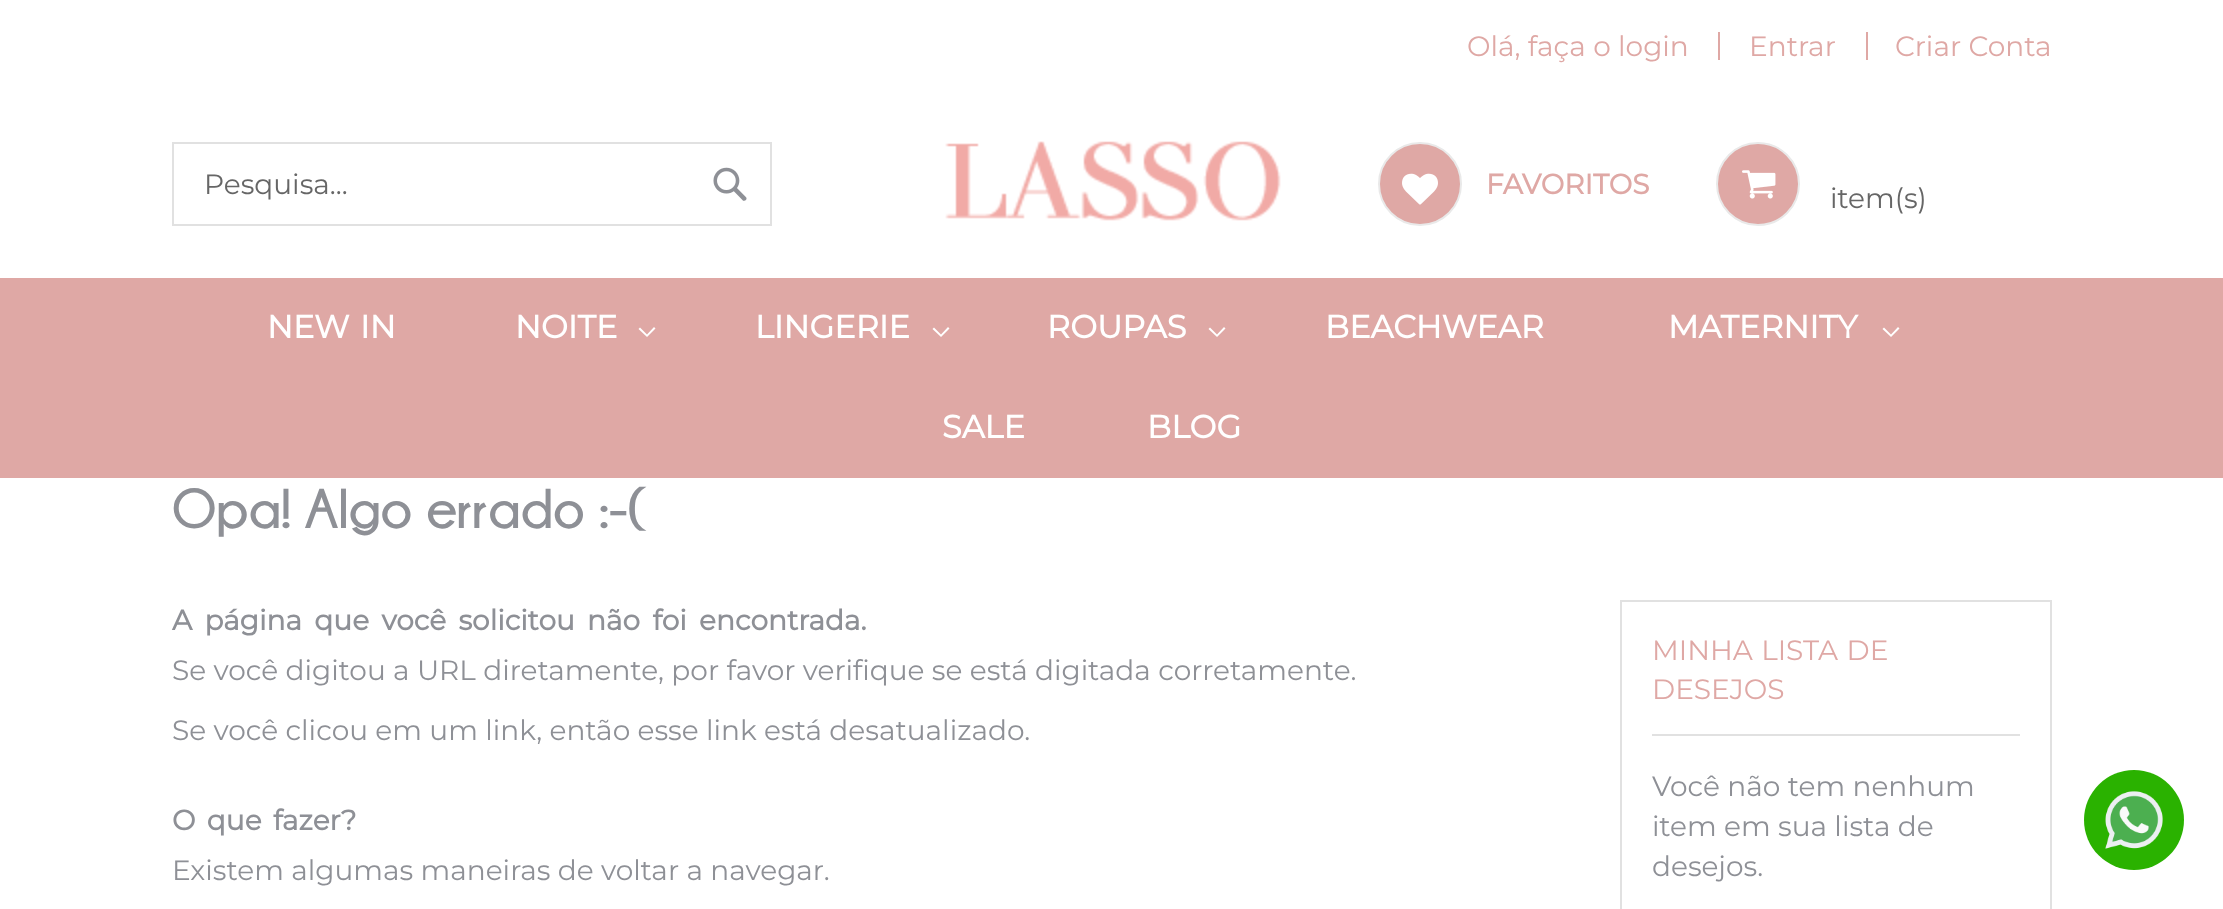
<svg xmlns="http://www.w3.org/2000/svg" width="2223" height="909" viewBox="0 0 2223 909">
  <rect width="100%" height="100%" fill="rgb(255,255,255)"/>
  <text x="1467" y="56" font-family="Montserrat" font-size="28" fill="rgb(223,168,165)">Olá, faça o login</text>
  <rect x="1718" y="32" width="2" height="28" fill="rgb(223,168,165)"/>
  <text x="1749" y="56" font-family="Montserrat" font-size="28" fill="rgb(223,168,165)">Entrar</text>
  <rect x="1866" y="32" width="2" height="28" fill="rgb(223,168,165)"/>
  <text x="1895" y="56" font-family="Montserrat" font-size="28" fill="rgb(223,168,165)">Criar Conta</text>
  <rect x="173" y="143" width="598" height="82" fill="none" stroke="rgb(225,225,225)" stroke-width="2"/>
  <text x="204" y="194" font-family="Montserrat" font-size="28" fill="rgb(102,102,102)">Pesquisa...</text>
  <image x="713" y="167" width="34" height="34" href="pic1.png"/>
  <image x="945" y="141" width="336" height="80" href="pic2.png"/>
  <circle cx="1420" cy="184" r="41" fill="rgb(223,168,165)" stroke="rgb(233,233,233)" stroke-width="2"/>
  <image x="1402" y="173" width="36" height="32" href="pic3.png"/>
  <text x="1486" y="194" font-family="Montserrat" font-size="28" font-weight="bold" fill="rgb(223,168,165)">FAVORITOS</text>
  <circle cx="1758" cy="184" r="41" fill="rgb(223,168,165)" stroke="rgb(233,233,233)" stroke-width="2"/>
  <image x="1742" y="170" width="34" height="29" href="pic4.png"/>
  <text x="1830" y="208" font-family="Montserrat" font-size="28" fill="rgb(102,102,102)">item(s)</text>
  <rect x="0" y="278" width="2223" height="200" fill="rgb(223,168,165)"/>
  <g font-family="Montserrat" font-size="32" font-weight="bold" fill="rgb(255,255,255)">
    <text x="267" y="338" word-spacing="2">NEW IN</text>
    <text x="515" y="338">NOITE</text>
  </g>
  <path d="M647 334.5L640 327.5L638.5 329L647 337L655.5 328.5L654 327Z" fill="rgb(255,255,255)"/>
  <text x="755" y="338" font-family="Montserrat" font-size="32" font-weight="bold" fill="rgb(255,255,255)">LINGERIE</text>
  <path d="M941 334.5L934 327.5L932.5 329L941 337L949.5 328.5L948 327Z" fill="rgb(255,255,255)"/>
  <text x="1047" y="338" font-family="Montserrat" font-size="32" font-weight="bold" fill="rgb(255,255,255)">ROUPAS</text>
  <path d="M1217 334.5L1210 327.5L1208.5 329L1217 337L1225.5 328.5L1224 327Z" fill="rgb(255,255,255)"/>
  <g font-family="Montserrat" font-size="32" font-weight="bold" fill="rgb(255,255,255)">
    <text x="1325" y="338">BEACHWEAR</text>
    <text x="1668" y="338">MATERNITY</text>
  </g>
  <path d="M1891 334.5L1884 327.5L1882.5 329L1891 337L1899.5 328.5L1898 327Z" fill="rgb(255,255,255)"/>
  <g font-family="Montserrat" font-size="32" font-weight="bold" fill="rgb(255,255,255)">
    <text x="942" y="438">SALE</text>
    <text x="1147" y="438">BLOG</text>
  </g>
  <text x="172" y="528" font-family="'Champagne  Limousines'" font-size="56" font-weight="bold" fill="rgb(142,144,150)">Opa! Algo errado :-(</text>
  <text x="172" y="630" word-spacing="5" font-family="Montserrat" font-size="28" font-weight="bold" fill="rgb(142,144,150)">A página que você solicitou não foi encontrada.</text>
  <g font-family="Montserrat" font-size="28" fill="rgb(142,144,150)">
    <text x="172" y="680">Se você digitou a URL diretamente, por favor verifique se está digitada corretamente.</text>
    <text x="172" y="740">Se você clicou em um link, então esse link está desatualizado.</text>
  </g>
  <text x="172" y="830" word-spacing="4" font-family="Montserrat" font-size="28" font-weight="bold" fill="rgb(142,144,150)">O que fazer?</text>
  <text x="172" y="880" font-family="Montserrat" font-size="28" fill="rgb(142,144,150)">Existem algumas maneiras de voltar a navegar.</text>
  <rect x="1621" y="601" width="430" height="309" fill="none" stroke="rgb(225,225,225)" stroke-width="2"/>
  <rect x="1652" y="734" width="368" height="2" fill="rgb(225,225,225)"/>
  <g font-family="Montserrat" font-size="28" fill="rgb(223,168,165)">
    <text>
      <tspan x="1652" y="660" word-spacing="1">MINHA LISTA DE</tspan>
      <tspan x="1652" y="699">DESEJOS</tspan>
    </text>
  </g>
  <g font-family="Montserrat" font-size="28" fill="rgb(142,144,150)">
    <text>
      <tspan x="1652" y="796">Você não tem nenhum</tspan>
      <tspan x="1652" y="836">item em sua lista de</tspan>
      <tspan x="1652" y="876">desejos.</tspan>
    </text>
  </g>
  <circle cx="2134" cy="820" r="50" fill="rgb(42,178,0)"/>
  <image x="2105" y="791" width="58" height="58" href="pic5.png"/>
</svg>
